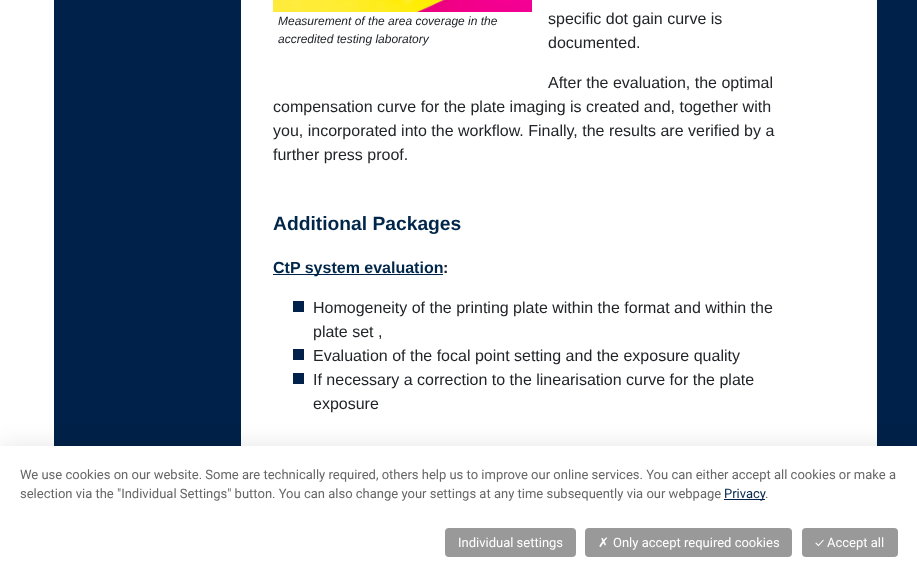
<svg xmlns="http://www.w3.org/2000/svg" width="917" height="581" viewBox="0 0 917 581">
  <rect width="100%" height="100%" fill="rgb(0,33,73)"/>
  <rect x="0" y="0" width="877" height="446" fill="rgb(255,255,255)"/>
  <rect x="54" y="0" width="187" height="446" fill="rgb(0,33,73)"/>
  <image x="273" y="0" width="259" height="12" href="pic1.png"/>
  <g font-family="Liberation Sans" font-size="12" font-style="italic" fill="rgb(33,37,41)">
    <text>
      <tspan x="278" y="25">Measurement of the area coverage in the</tspan>
      <tspan x="278" y="43">accredited testing laboratory</tspan>
    </text>
  </g>
  <g font-family="Liberation Sans" font-size="16" fill="rgb(33,37,41)">
    <text>
      <tspan x="548" y="24">specific dot gain curve is</tspan>
      <tspan x="548" y="48">documented.</tspan>
    </text>
    <text x="548" y="88">After the evaluation, the optimal</text>
    <text>
      <tspan x="273" y="112">compensation curve for the plate imaging is created and, together with</tspan>
      <tspan x="273" y="136">you, incorporated into the workflow. Finally, the results are verified by a</tspan>
      <tspan x="273" y="160">further press proof.</tspan>
    </text>
  </g>
  <text x="273" y="230" font-family="Liberation Sans" font-size="19.25" font-weight="bold" fill="rgb(0,38,74)">Additional Packages</text>
  <rect x="273" y="274" width="170" height="1" fill="rgb(0,33,73)"/>
  <text x="273" y="273" font-family="Liberation Sans" font-size="16" font-weight="bold" fill="rgb(0,38,74)">CtP system evaluation</text>
  <text x="443" y="273" font-family="Liberation Sans" font-size="16" font-weight="bold" fill="rgb(33,37,41)">:</text>
  <rect x="293" y="301" width="11" height="11" fill="rgb(0,33,73)"/>
  <g font-family="Liberation Sans" font-size="16" fill="rgb(33,37,41)">
    <text>
      <tspan x="313" y="313">Homogeneity of the printing plate within the format and within the</tspan>
      <tspan x="313" y="337">plate set ,</tspan>
    </text>
  </g>
  <rect x="293" y="349" width="11" height="11" fill="rgb(0,33,73)"/>
  <text x="313" y="361" font-family="Liberation Sans" font-size="16" fill="rgb(33,37,41)">Evaluation of the focal point setting and the exposure quality</text>
  <rect x="293" y="373" width="11" height="11" fill="rgb(0,33,73)"/>
  <g font-family="Liberation Sans" font-size="16" fill="rgb(33,37,41)">
    <text>
      <tspan x="313" y="385">If necessary a correction to the linearisation curve for the plate</tspan>
      <tspan x="313" y="409">exposure</tspan>
    </text>
  </g>
  <rect x="0" y="446" width="917" height="135" fill="rgba(0,0,0,0.1)" filter="blur(12px)"/>
  <rect x="0" y="446" width="917" height="135" fill="rgb(255,255,255)"/>
  <g font-family="Roboto" font-size="13" fill="rgb(102,102,102)">
    <text>
      <tspan x="20" y="479">We use cookies on our website. Some are technically required, others help us to improve our online services. You can either accept all cookies or make a</tspan>
      <tspan x="20" y="498">selection via the "Individual Settings" button. You can also change your settings at any time subsequently via our webpage</tspan>
    </text>
  </g>
  <rect x="724" y="499" width="41" height="1" fill="rgb(0,33,73)"/>
  <text x="724" y="498" font-family="Roboto" font-size="13" fill="rgb(0,38,74)">Privacy</text>
  <text x="765" y="498" font-family="Roboto" font-size="13" fill="rgb(102,102,102)">.</text>
  <rect x="445" y="528" width="131" height="29" rx="4" fill="rgb(153,153,153)"/>
  <text x="458" y="547" font-family="Roboto" font-size="13" fill="rgb(255,255,255)">Individual settings</text>
  <rect x="585" y="528" width="207" height="29" rx="4" fill="rgb(153,153,153)"/>
  <text x="598" y="547" font-family="DejaVu Sans" font-size="13" fill="rgb(255,255,255)">✗</text>
  <text x="613" y="547" font-family="Roboto" font-size="13" fill="rgb(255,255,255)">Only accept required cookies</text>
  <rect x="802" y="528" width="96" height="29" rx="4" fill="rgb(153,153,153)"/>
  <text x="815" y="547" font-family="Ubuntu" font-size="13" fill="rgb(255,255,255)">✓</text>
  <text x="827" y="547" font-family="Roboto" font-size="13" fill="rgb(255,255,255)">Accept all</text>
</svg>
